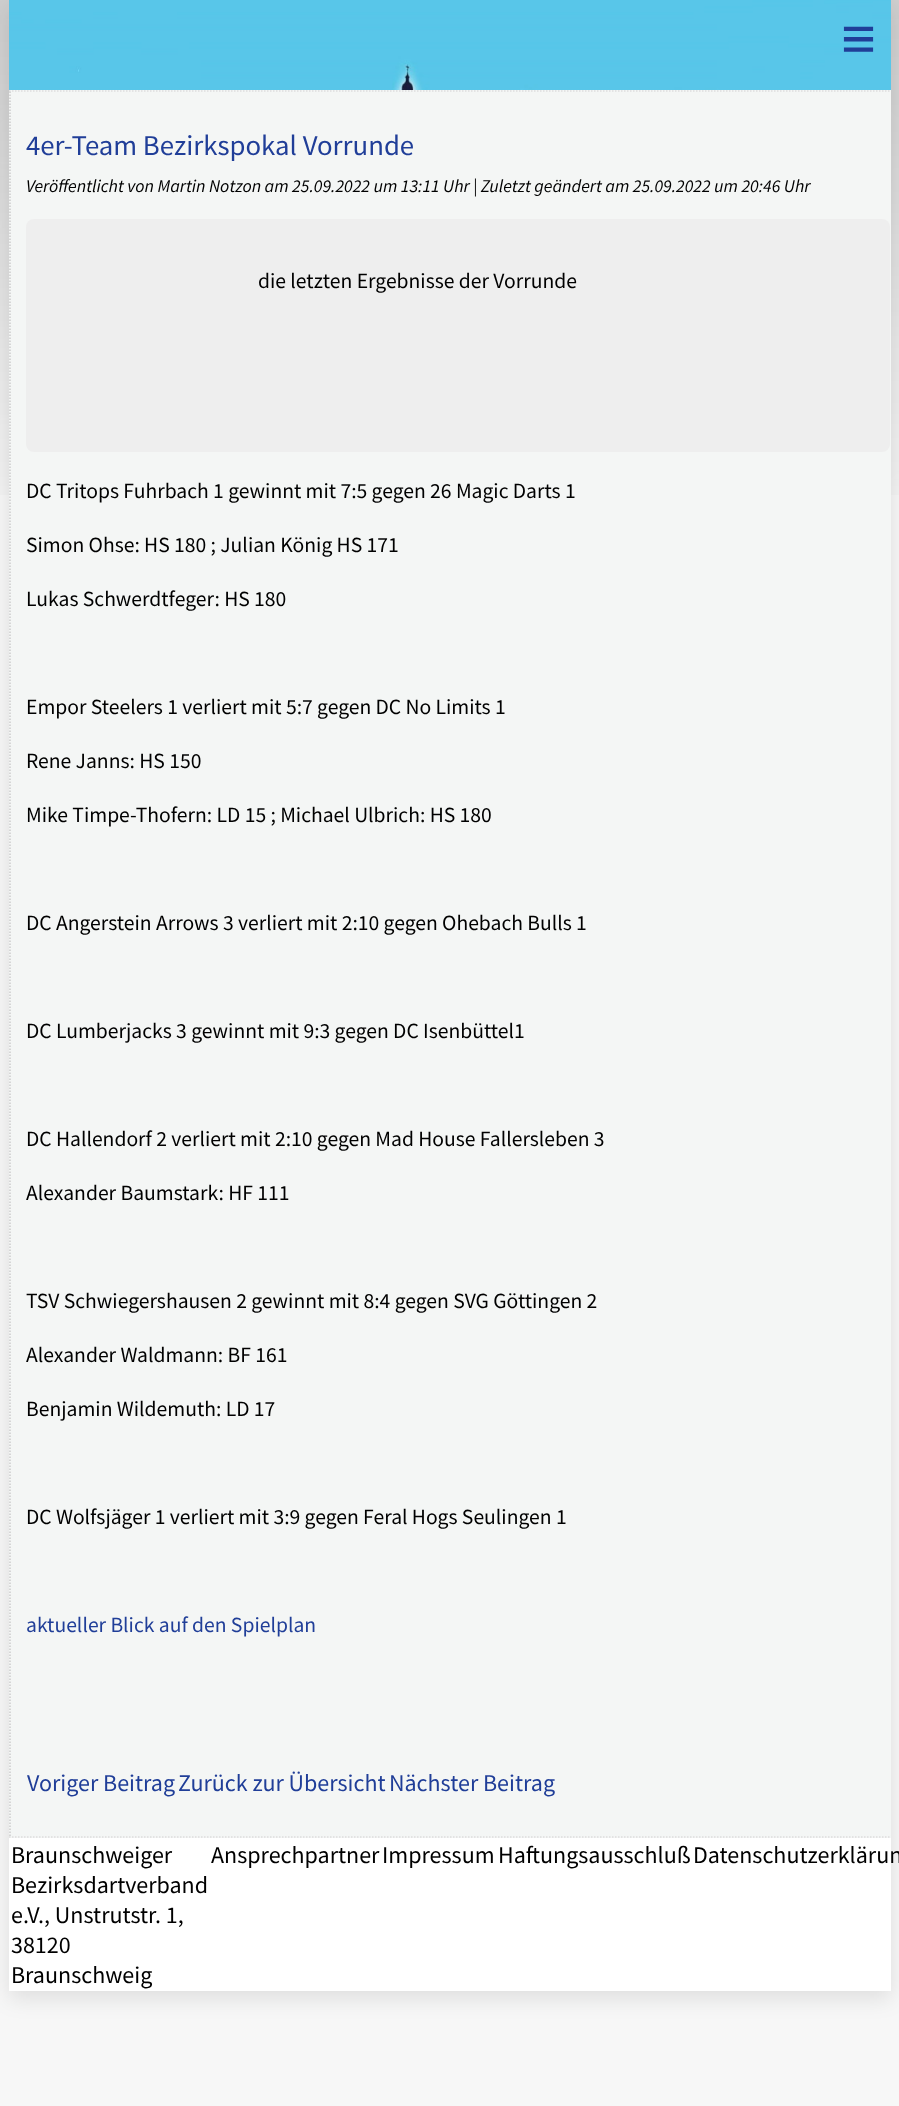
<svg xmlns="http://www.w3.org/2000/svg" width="899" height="2106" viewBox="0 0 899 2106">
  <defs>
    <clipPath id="clip1"><path d="M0 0H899V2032H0ZM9 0H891V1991H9Z" clip-rule="evenodd"/></clipPath>
  </defs>
  <rect width="100%" height="100%" fill="rgb(247,247,247)"/>
  <image x="0" y="0" width="899" height="495" href="pic1.png"/>
  <image x="9" y="0" width="882" height="90" href="pic2.png"/>
  <g clip-path="url(#clip1)">
    <rect x="9" y="8" width="882" height="1990" fill="rgba(0,0,0,0.1)" filter="blur(11px)"/>
  </g>
  <text x="841" y="59" font-family="Liberation Sans" font-size="60" fill="rgb(32,62,152)">≡</text>
  <rect x="9" y="90" width="882" height="1748" fill="rgb(244,246,245)"/>
  <path d="M9 91H891" fill="none" stroke="rgb(221,221,221)" stroke-width="1.5" stroke-dasharray="1.5 1.5"/>
  <path d="M9 1837H891" fill="none" stroke="rgb(221,221,221)" stroke-width="1.5" stroke-dasharray="1.5 1.5"/>
  <path d="M10 91.5V1836" fill="none" stroke="rgb(204,204,204)" stroke-width="1.5" stroke-dasharray="1.5 1.5"/>
  <text x="26" y="155" font-family="Source Sans Pro" font-size="28.75" fill="rgb(32,62,152)">4er-Team Bezirkspokal Vorrunde</text>
  <text x="26" y="192" font-family="Source Sans Pro" font-size="18" font-style="italic" fill="rgb(0,0,0)">Veröffentlicht von Martin Notzon am 25.09.2022 um 13:11 Uhr | Zuletzt geändert am 25.09.2022 um 20:46 Uhr</text>
  <rect x="26" y="219" width="864" height="233" rx="8" fill="rgb(238,238,238)"/>
  <g font-family="Source Sans Pro" font-size="21.6" fill="rgb(0,0,0)">
    <text x="258" y="288">die letzten Ergebnisse der Vorrunde</text>
    <text x="26" y="498">DC Tritops Fuhrbach 1 gewinnt mit 7:5 gegen 26 Magic Darts 1</text>
    <text x="26" y="552">Simon Ohse: HS 180 ; Julian König HS 171</text>
    <text x="26" y="606">Lukas Schwerdtfeger: HS 180</text>
    <text x="26" y="714">Empor Steelers 1 verliert mit 5:7 gegen DC No Limits 1</text>
    <text x="26" y="768">Rene Janns: HS 150</text>
    <text x="26" y="822">Mike Timpe-Thofern: LD 15 ; Michael Ulbrich: HS 180</text>
    <text x="26" y="930">DC Angerstein Arrows 3 verliert mit 2:10 gegen Ohebach Bulls 1</text>
    <text x="26" y="1038">DC Lumberjacks 3 gewinnt mit 9:3 gegen DC Isenbüttel1</text>
    <text x="26" y="1146">DC Hallendorf 2 verliert mit 2:10 gegen Mad House Fallersleben 3</text>
    <text x="26" y="1200">Alexander Baumstark: HF 111</text>
    <text x="26" y="1308">TSV Schwiegershausen 2 gewinnt mit 8:4 gegen SVG Göttingen 2</text>
    <text x="26" y="1362">Alexander Waldmann: BF 161</text>
    <text x="26" y="1416">Benjamin Wildemuth: LD 17</text>
    <text x="26" y="1524">DC Wolfsjäger 1 verliert mit 3:9 gegen Feral Hogs Seulingen 1</text>
  </g>
  <text x="26" y="1632" font-family="Source Sans Pro" font-size="21.6" fill="rgb(32,62,152)">aktueller Blick auf den Spielplan</text>
  <g font-family="Source Sans Pro" font-size="24" fill="rgb(32,62,152)">
    <text x="27" y="1791">Voriger Beitrag</text>
    <text x="178" y="1791">Zurück zur Übersicht</text>
    <text x="389" y="1791">Nächster Beitrag</text>
  </g>
  <rect x="9" y="1838" width="882" height="153" fill="rgb(255,255,255)"/>
  <g font-family="Source Sans Pro" font-size="24" fill="rgb(0,0,0)">
    <text>
      <tspan x="11" y="1863">Braunschweiger</tspan>
      <tspan x="11" y="1893">Bezirksdartverband</tspan>
      <tspan x="11" y="1923">e.V., Unstrutstr. 1,</tspan>
      <tspan x="11" y="1953">38120</tspan>
      <tspan x="11" y="1983">Braunschweig</tspan>
    </text>
    <text x="211" y="1863">Ansprechpartner</text>
    <text x="382" y="1863">Impressum</text>
    <text x="498" y="1863">Haftungsausschluß</text>
    <text x="693" y="1863">Datenschutzerklärun</text>
  </g>
</svg>
